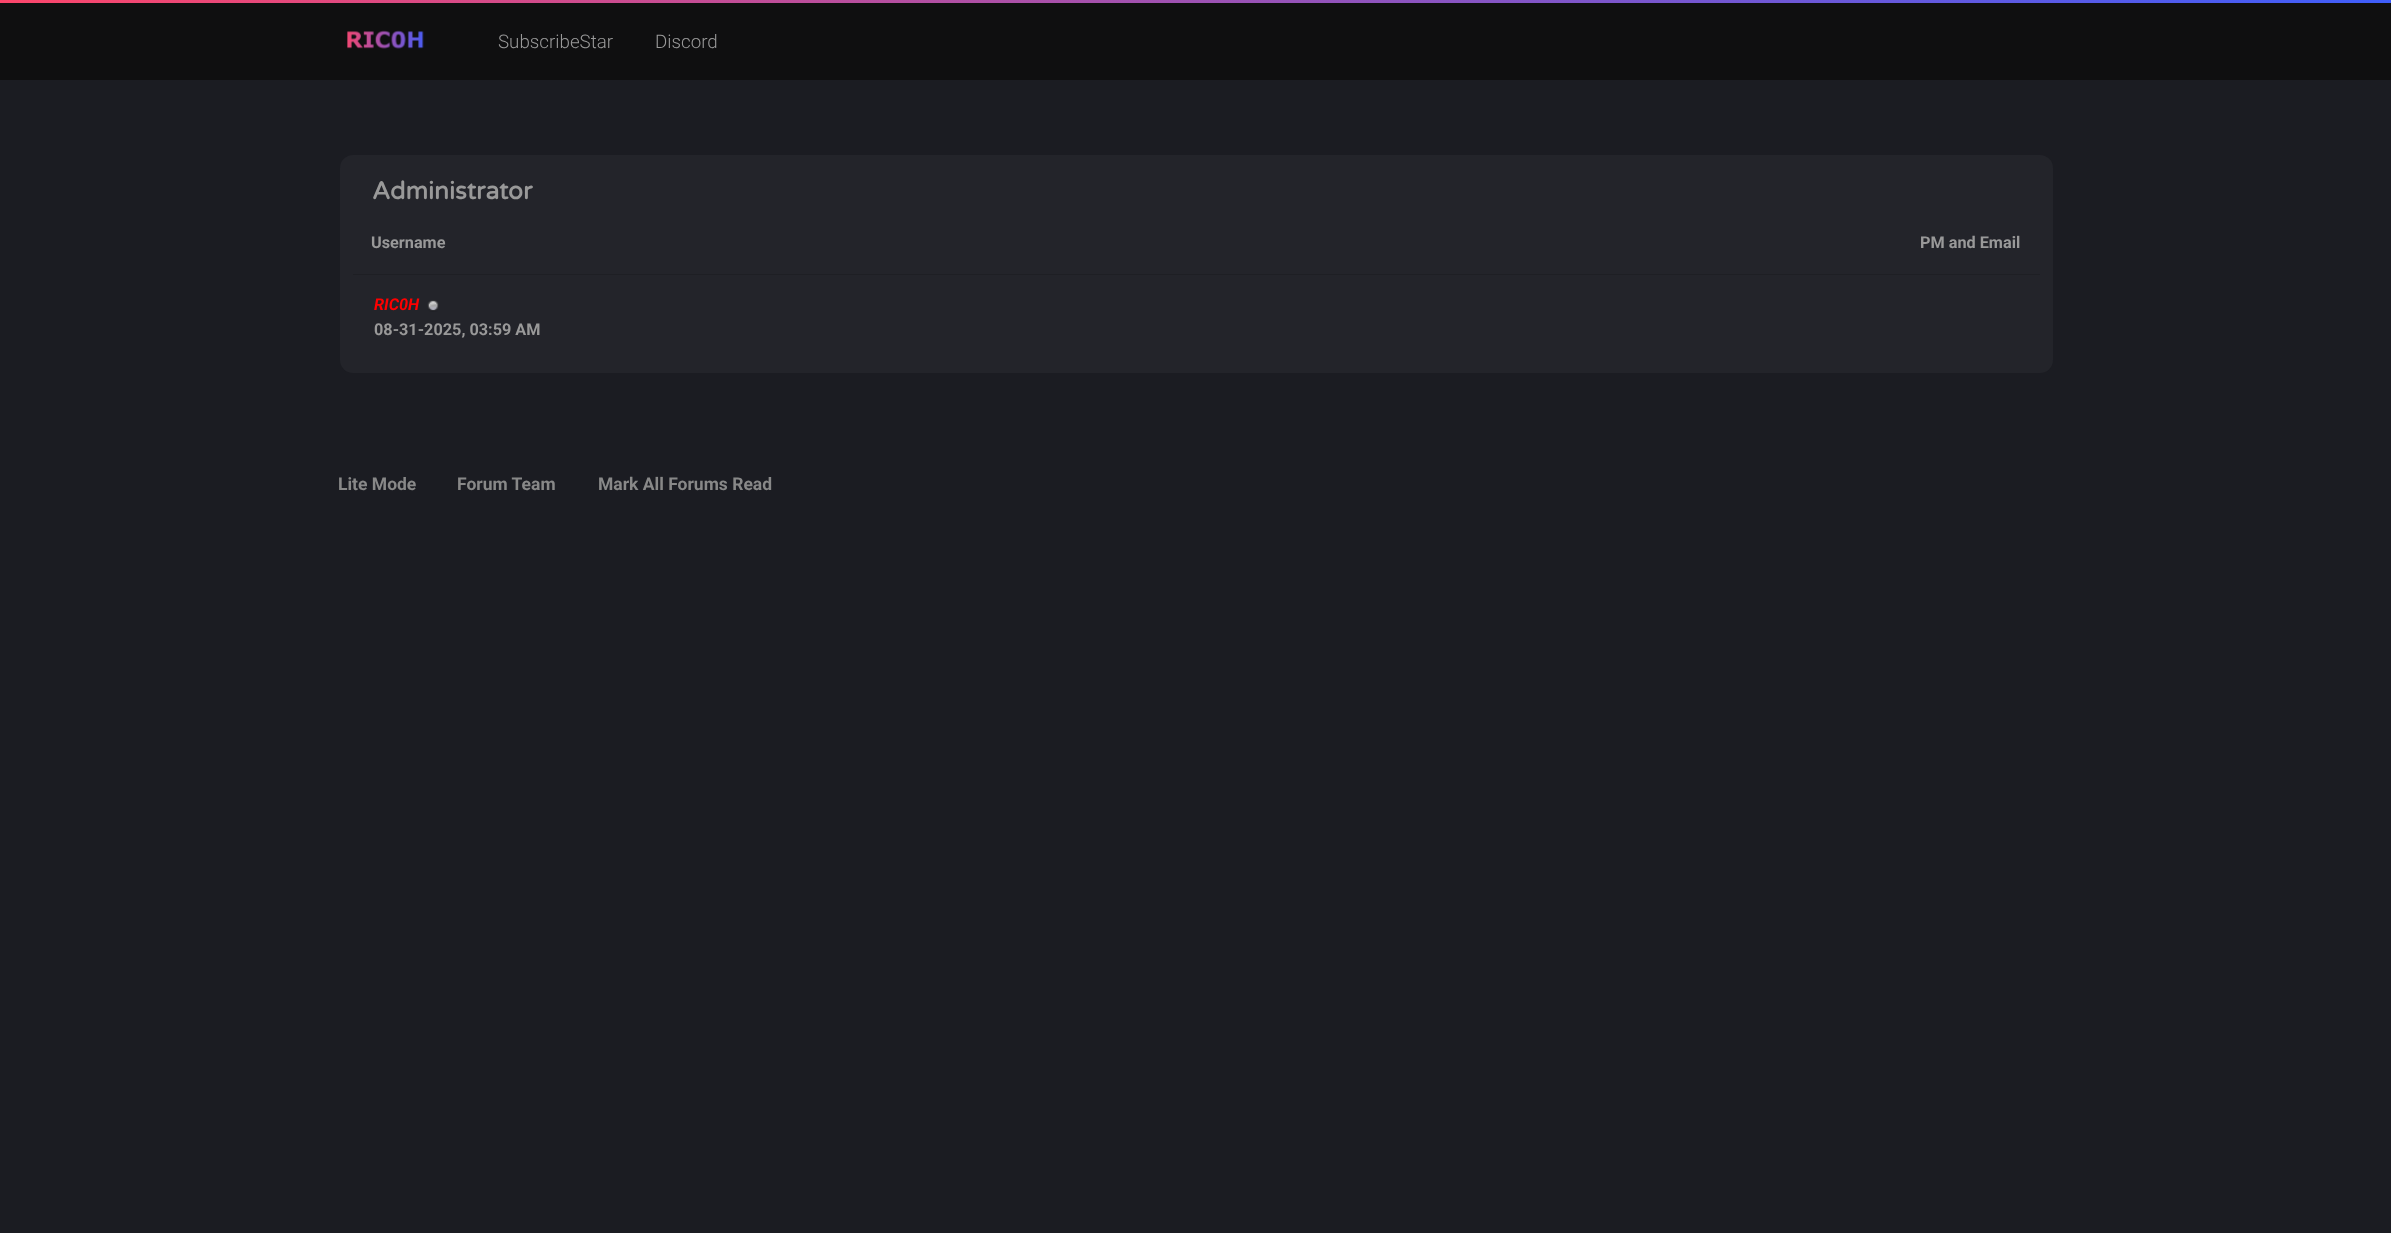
<svg xmlns="http://www.w3.org/2000/svg" width="2391" height="1233" viewBox="0 0 2391 1233">
  <defs>
    <linearGradient id="g1" gradientUnits="userSpaceOnUse" x1="0" y1="1.3" x2="2391" y2="1.2"><stop offset="0" stop-color="rgb(252,70,107)"/><stop offset="1" stop-color="rgb(63,94,251)"/></linearGradient>
  </defs>
  <rect width="100%" height="100%" fill="rgb(27,28,34)"/>
  <rect x="0" y="0" width="2391" height="3" fill="url(#g1)"/>
  <rect x="0" y="3" width="2391" height="77" fill="rgb(15,15,16)"/>
  <image x="347" y="30" width="77" height="19" href="pic1.png"/>
  <g font-family="Roboto" font-size="18.75" font-weight="300" fill="rgb(153,153,153)">
    <text x="498" y="48">SubscribeStar</text>
    <text x="655" y="48">Discord</text>
  </g>
  <rect x="340" y="155" width="1713" height="218" rx="13" fill="rgb(35,36,42)"/>
  <text x="372" y="199" font-family="Varela Round" font-size="24.5" font-weight="bold" fill="rgb(153,153,153)">Administrator</text>
  <rect x="353" y="274" width="1687" height="1" fill="rgb(30,31,36)"/>
  <g font-family="Roboto" font-size="16.25" font-weight="bold" fill="rgb(153,153,153)">
    <text x="371" y="248">Username</text>
    <text x="1920" y="248">PM and Email</text>
  </g>
  <text x="374" y="310" font-family="Roboto" font-size="16.25" font-weight="bold" font-style="italic" fill="rgb(255,0,0)">RIC0H</text>
  <image x="427" y="300" width="12" height="12" href="pic2.png"/>
  <text x="374" y="335" font-family="Roboto" font-size="16.25" font-weight="bold" fill="rgb(153,153,153)">08-31-2025, 03:59 AM</text>
  <g font-family="Roboto" font-size="17.5" font-weight="bold" fill="rgb(136,136,136)">
    <text x="338" y="490">Lite Mode</text>
    <text x="457" y="490">Forum Team</text>
    <text x="598" y="490">Mark All Forums Read</text>
  </g>
</svg>
